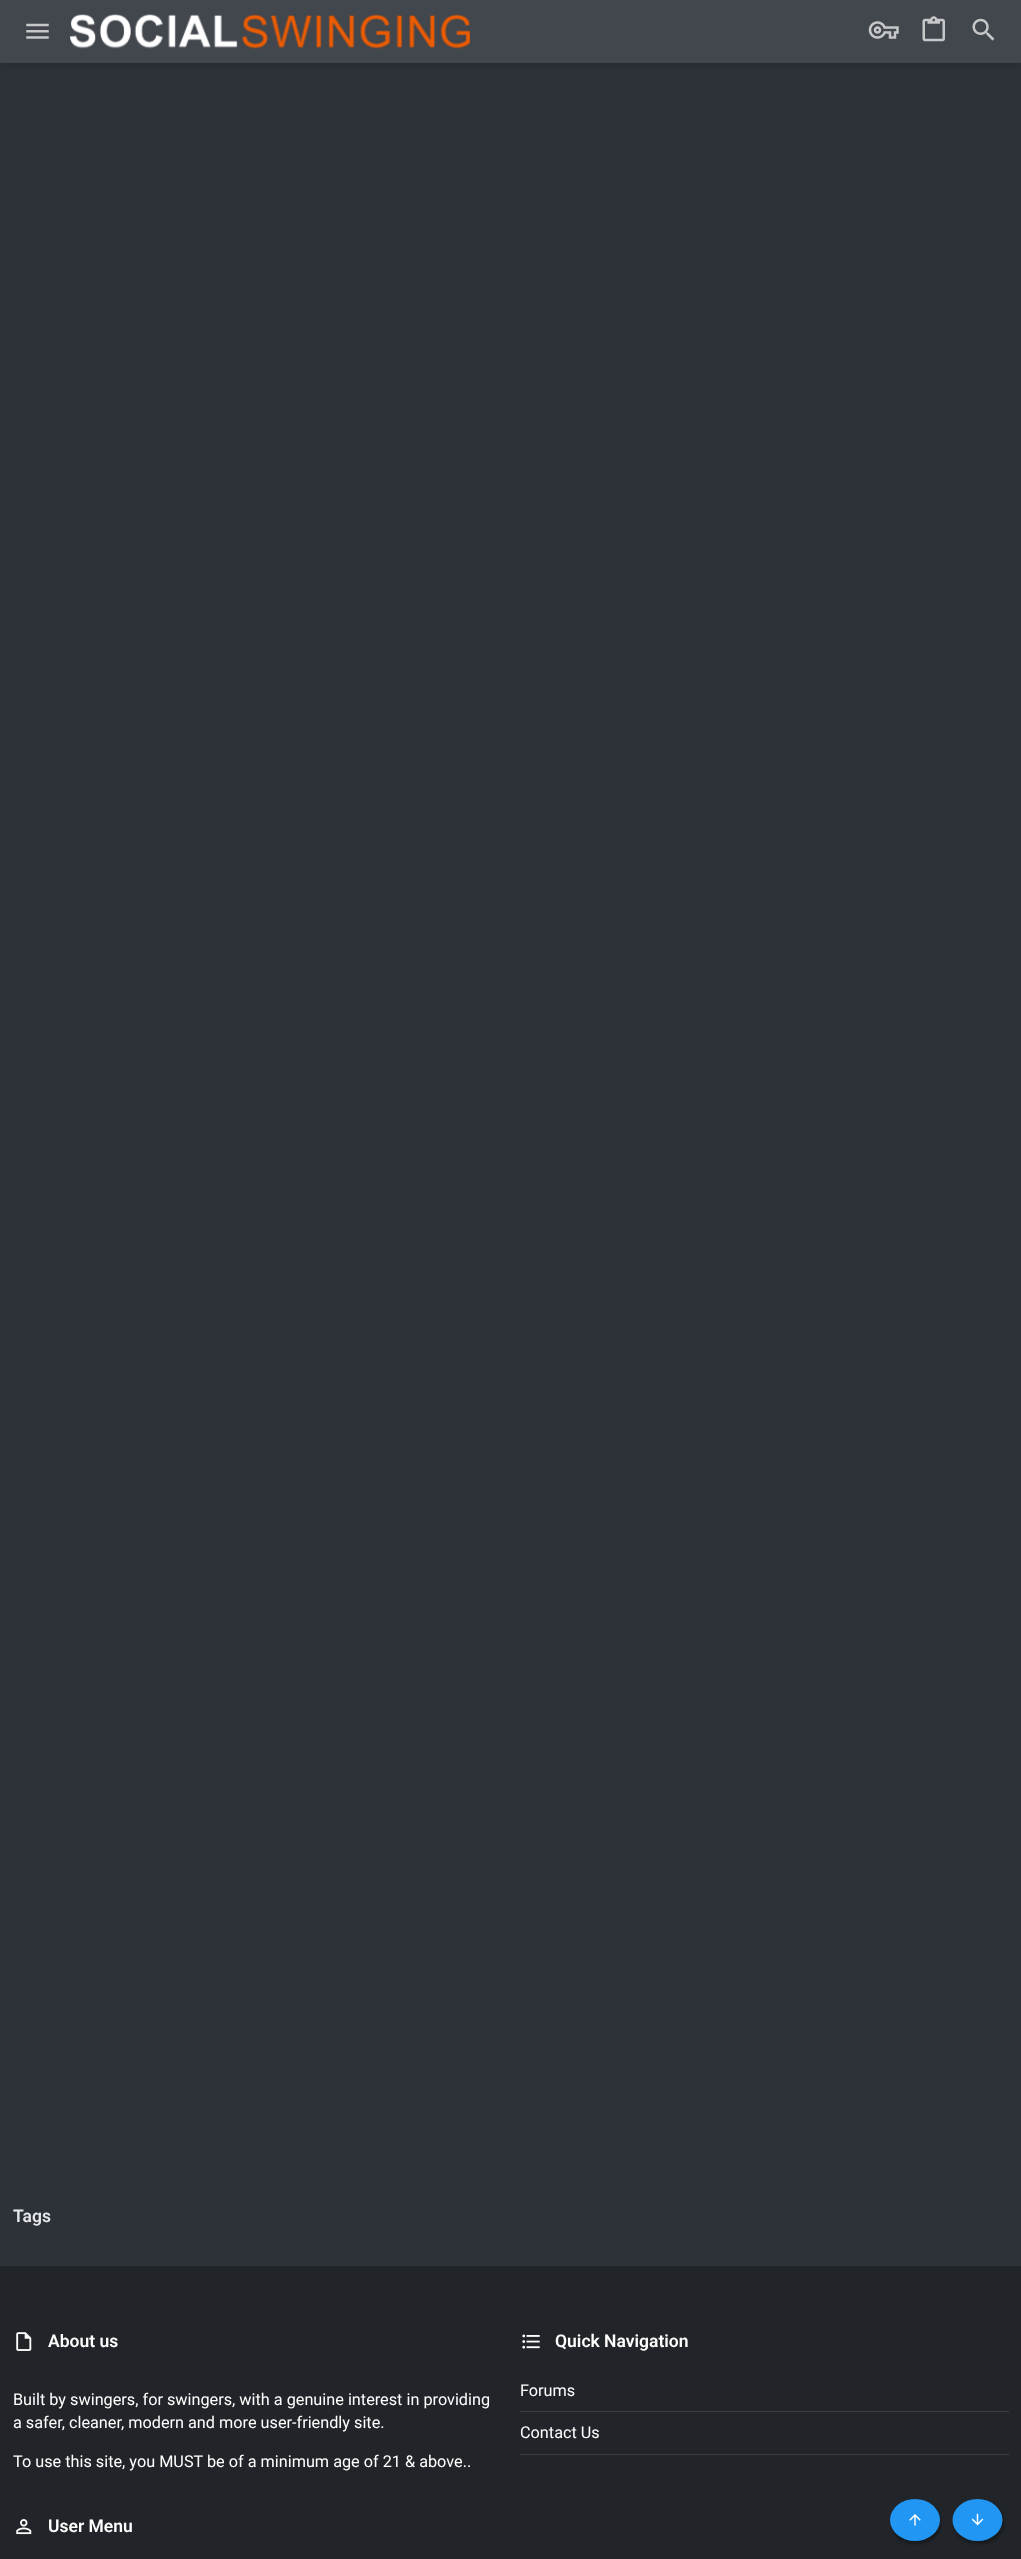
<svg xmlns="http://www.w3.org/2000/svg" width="1021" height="2559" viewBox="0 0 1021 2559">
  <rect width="100%" height="100%" fill="rgb(45,50,56)"/>
  <rect x="0" y="1" width="1021" height="63" fill="rgba(0,0,0,0.2)" filter="blur(3px)"/>
  <rect x="0" y="0" width="1021" height="63" fill="rgb(66,70,77)"/>
  <image x="26" y="23" width="23" height="16" href="pic1.png"/>
  <image x="70" y="14" width="400" height="35" href="pic2.png"/>
  <image x="868" y="21" width="31" height="18" href="pic3.png"/>
  <image x="922" y="16" width="23" height="26" href="pic4.png"/>
  <image x="972" y="18" width="23" height="23" href="pic5.png"/>
  <text x="13" y="2222" font-family="Roboto" font-size="17.5" font-weight="600" fill="rgb(230,231,234)">Tags</text>
  <rect x="0" y="2266" width="1021" height="293" fill="rgb(33,36,40)"/>
  <image x="16" y="2332" width="16" height="19" href="pic6.png"/>
  <text x="48" y="2347" font-family="Roboto" font-size="17.5" font-weight="600" fill="rgb(255,255,255)">About us</text>
  <g font-family="Roboto" font-size="16.25" fill="rgb(255,255,255)">
    <text>
      <tspan x="13" y="2405">Built by swingers, for swingers, with a genuine interest in providing</tspan>
      <tspan x="13" y="2428">a safer, cleaner, modern and more user-friendly site.</tspan>
    </text>
    <text x="13" y="2467">To use this site, you MUST be of a minimum age of 21 &amp; above..</text>
  </g>
  <image x="522" y="2334" width="18" height="15" href="pic7.png"/>
  <text x="555" y="2347" font-family="Roboto" font-size="17.5" font-weight="600" fill="rgb(255,255,255)">Quick Navigation</text>
  <rect x="520" y="2411" width="489" height="1" fill="rgb(60,62,66)"/>
  <text x="520" y="2396" font-family="Roboto" font-size="16.25" fill="rgb(255,255,255)">Forums</text>
  <rect x="520" y="2454" width="489" height="1" fill="rgb(60,62,66)"/>
  <text x="520" y="2438" font-family="Roboto" font-size="16.25" fill="rgb(255,255,255)">Contact Us</text>
  <image x="16" y="2519" width="16" height="16" href="pic8.png"/>
  <text x="48" y="2532" font-family="Roboto" font-size="17.5" font-weight="600" fill="rgb(255,255,255)">User Menu</text>
  <rect x="891" y="2501" width="50" height="43" rx="21.5" fill="rgba(0,0,0,0.25)" filter="blur(1px)"/>
  <ellipse cx="915" cy="2520" rx="25" ry="21" fill="rgb(33,150,243)"/>
  <image x="909" y="2514" width="12" height="12" href="pic9.png"/>
  <rect x="954" y="2501" width="50" height="43" rx="21.5" fill="rgba(0,0,0,0.25)" filter="blur(1px)"/>
  <ellipse cx="977.5" cy="2520" rx="25" ry="21" fill="rgb(33,150,243)"/>
  <image x="971" y="2513" width="13" height="13" href="pic10.png"/>
</svg>
